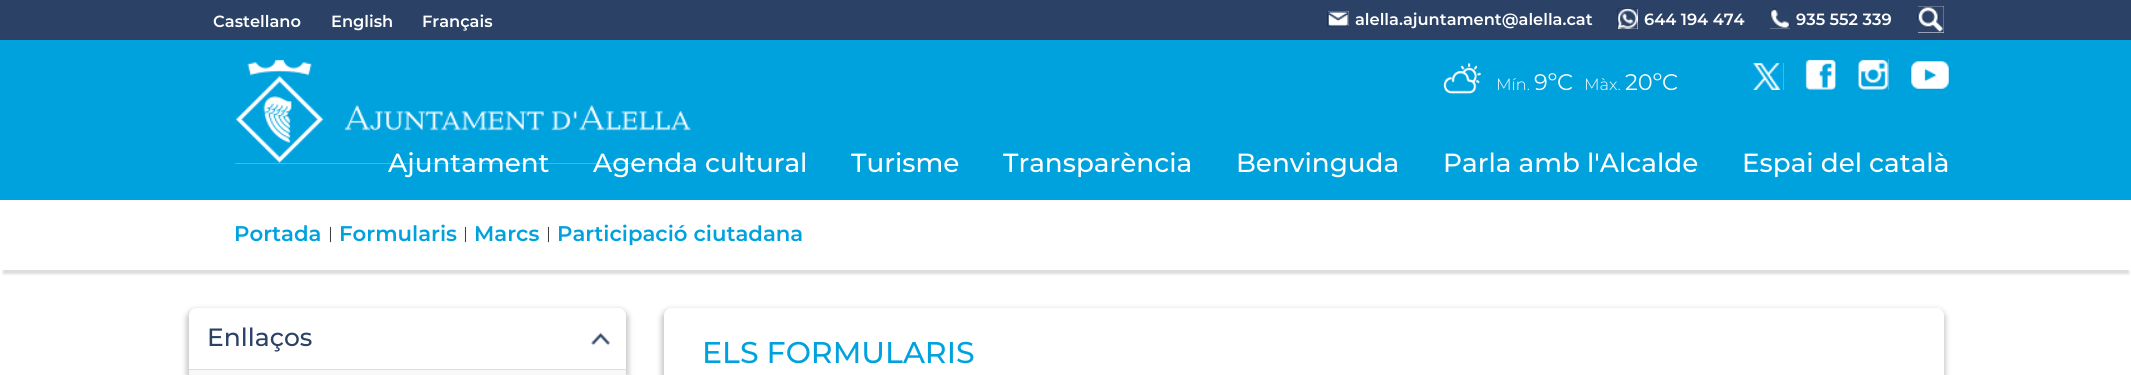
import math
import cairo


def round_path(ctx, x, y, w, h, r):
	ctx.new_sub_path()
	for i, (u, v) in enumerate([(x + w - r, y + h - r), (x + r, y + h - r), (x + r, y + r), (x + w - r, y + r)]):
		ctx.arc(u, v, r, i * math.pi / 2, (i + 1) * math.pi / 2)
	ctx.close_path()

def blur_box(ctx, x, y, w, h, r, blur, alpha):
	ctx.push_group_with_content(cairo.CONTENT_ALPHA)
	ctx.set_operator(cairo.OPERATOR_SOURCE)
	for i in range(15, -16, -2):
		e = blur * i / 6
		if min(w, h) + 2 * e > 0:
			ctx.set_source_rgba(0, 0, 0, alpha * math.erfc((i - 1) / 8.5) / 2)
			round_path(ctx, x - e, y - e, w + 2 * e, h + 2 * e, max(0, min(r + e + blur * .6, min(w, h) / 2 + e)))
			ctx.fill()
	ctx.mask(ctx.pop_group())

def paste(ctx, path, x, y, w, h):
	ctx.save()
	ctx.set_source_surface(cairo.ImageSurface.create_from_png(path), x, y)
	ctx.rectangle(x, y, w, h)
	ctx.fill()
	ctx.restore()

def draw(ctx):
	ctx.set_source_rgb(1, 1, 1)
	ctx.paint()
	ctx.set_source_rgb(0.169, 0.259, 0.4)
	ctx.rectangle(0, 0, 2131, 40)
	ctx.fill()
	ctx.select_font_face('Montserrat SemiBold')
	ctx.set_font_size(16.25)
	ctx.set_source_rgb(1, 1, 1)
	for x, y, s in [
		(213, 27, 'Castellano'),
		(331, 27, 'English'),
		(422, 27, 'Français'),
	]:
		ctx.move_to(x, y)
		ctx.show_text(s)
	ctx.rectangle(1328, 11, 21, 15)
	ctx.fill()
	paste(ctx, 'media/1.png', 1327, 11, 22, 16)
	ctx.move_to(1355, 25)
	ctx.show_text('alella.ajuntament@alella.cat')
	ctx.rectangle(1618, 9, 20, 20)
	ctx.fill()
	paste(ctx, 'media/2.png', 1617, 8, 21, 21)
	ctx.move_to(1644, 25)
	ctx.show_text('644 194 474')
	ctx.rectangle(1770, 9, 20, 20)
	ctx.fill()
	paste(ctx, 'media/3.png', 1770, 8, 20, 21)
	ctx.move_to(1796, 25)
	ctx.show_text('935 552 339')
	ctx.rectangle(1918, 6, 26, 27)
	ctx.fill()
	paste(ctx, 'media/4.png', 1917, 6, 27, 27)
	ctx.set_source_rgb(0, 0.635, 0.871)
	ctx.rectangle(0, 40, 2131, 160)
	ctx.fill()
	ctx.set_source_rgb(1, 1, 1)
	ctx.rectangle(235, 59, 456, 105)
	ctx.fill()
	paste(ctx, 'media/5.png', 235, 59, 456, 105)
	paste(ctx, 'media/6.png', 1443, 62, 38, 32)
	ctx.select_font_face('Montserrat Light')
	ctx.move_to(1496, 90)
	ctx.show_text('Mín.')
	ctx.select_font_face('Montserrat')
	ctx.set_font_size(22.5)
	ctx.move_to(1534, 90)
	ctx.show_text('9ºC')
	ctx.select_font_face('Montserrat Light')
	ctx.set_font_size(16.25)
	ctx.move_to(1584, 90)
	ctx.show_text('Màx.')
	ctx.select_font_face('Montserrat')
	ctx.set_font_size(22.5)
	ctx.move_to(1625, 90)
	ctx.show_text('20ºC')
	ctx.rectangle(1752, 63, 32, 27)
	ctx.fill()
	paste(ctx, 'media/7.png', 1750, 63, 34, 27)
	ctx.rectangle(1805, 59, 31, 31)
	ctx.fill()
	paste(ctx, 'media/8.png', 1805, 59, 31, 31)
	ctx.rectangle(1858, 59, 31, 31)
	ctx.fill()
	paste(ctx, 'media/9.png', 1858, 59, 31, 31)
	ctx.rectangle(1911, 61, 38, 28)
	ctx.fill()
	paste(ctx, 'media/10.png', 1910, 60, 40, 30)
	ctx.select_font_face('Montserrat Medium')
	ctx.set_font_size(26.25)
	for x, y, s in [
		(388, 172, 'Ajuntament'),
		(593, 172, 'Agenda cultural'),
		(851, 172, 'Turisme'),
		(1003, 172, 'Transparència'),
		(1236, 172, 'Benvinguda'),
		(1443, 172, 'Parla amb l\'Alcalde'),
		(1742, 172, 'Espai del català'),
	]:
		ctx.move_to(x, y)
		ctx.show_text(s)
	ctx.save()
	ctx.rectangle(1, 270, 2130, 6)
	ctx.clip()
	ctx.set_source_rgb(0.867, 0.867, 0.867)
	blur_box(ctx, 3, 209, 2126, 65, 0, 1, 1)
	ctx.restore()
	ctx.select_font_face('Montserrat SemiBold')
	ctx.set_font_size(21.25)
	ctx.set_source_rgb(0, 0.635, 0.871)
	ctx.move_to(234, 241)
	ctx.show_text('Portada')
	ctx.select_font_face('Montserrat Light')
	ctx.set_font_size(16.25)
	ctx.set_source_rgb(0, 0, 0)
	ctx.move_to(328, 239)
	ctx.show_text('|')
	ctx.select_font_face('Montserrat SemiBold')
	ctx.set_font_size(21.25)
	ctx.set_source_rgb(0, 0.635, 0.871)
	ctx.move_to(339, 241)
	ctx.show_text('Formularis')
	ctx.select_font_face('Montserrat Light')
	ctx.set_font_size(16.25)
	ctx.set_source_rgb(0, 0, 0)
	ctx.move_to(463, 239)
	ctx.show_text('|')
	ctx.select_font_face('Montserrat SemiBold')
	ctx.set_font_size(21.25)
	ctx.set_source_rgb(0, 0.635, 0.871)
	ctx.move_to(474, 241)
	ctx.show_text('Marcs')
	ctx.select_font_face('Montserrat Light')
	ctx.set_font_size(16.25)
	ctx.set_source_rgb(0, 0, 0)
	ctx.move_to(546, 239)
	ctx.show_text('|')
	ctx.select_font_face('Montserrat SemiBold')
	ctx.set_font_size(21.25)
	ctx.set_source_rgb(0, 0.635, 0.871)
	ctx.move_to(557, 241)
	ctx.show_text('Participació ciutadana')
	ctx.save()
	ctx.set_fill_rule(cairo.FILL_RULE_EVEN_ODD)
	ctx.new_path()
	ctx.move_to(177, 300)
	ctx.line_to(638, 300)
	ctx.line_to(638, 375)
	ctx.line_to(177, 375)
	ctx.close_path()
	ctx.move_to(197, 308)
	ctx.line_to(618, 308)
	ctx.curve_to(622.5, 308, 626, 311.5, 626, 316)
	ctx.line_to(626, 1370)
	ctx.curve_to(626, 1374.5, 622.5, 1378, 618, 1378)
	ctx.line_to(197, 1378)
	ctx.curve_to(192.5, 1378, 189, 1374.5, 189, 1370)
	ctx.line_to(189, 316)
	ctx.curve_to(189, 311.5, 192.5, 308, 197, 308)
	ctx.close_path()
	ctx.clip()
	ctx.set_source_rgb(0.8, 0.8, 0.8)
	blur_box(ctx, 186, 309, 443, 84, 10, 2.5, 1)
	ctx.restore()
	ctx.set_source_rgb(0.867, 0.867, 0.867)
	ctx.rectangle(189, 369, 437, 1)
	ctx.fill()
	ctx.select_font_face('Montserrat Medium')
	ctx.set_font_size(25)
	ctx.set_source_rgb(0.169, 0.259, 0.4)
	ctx.move_to(207, 346)
	ctx.show_text('Enllaços')
	ctx.set_source_rgb(0.969, 0.969, 0.969)
	ctx.rectangle(189, 370, 437, 5)
	ctx.fill()
	paste(ctx, 'media/11.png', 591, 332, 20, 14)
	ctx.save()
	ctx.set_fill_rule(cairo.FILL_RULE_EVEN_ODD)
	ctx.new_path()
	ctx.move_to(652, 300)
	ctx.line_to(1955, 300)
	ctx.line_to(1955, 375)
	ctx.line_to(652, 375)
	ctx.close_path()
	ctx.move_to(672, 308)
	ctx.line_to(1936, 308)
	ctx.curve_to(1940.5, 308, 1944, 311.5, 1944, 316)
	ctx.line_to(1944, 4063)
	ctx.curve_to(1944, 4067.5, 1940.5, 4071, 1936, 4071)
	ctx.line_to(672, 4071)
	ctx.curve_to(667.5, 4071, 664, 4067.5, 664, 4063)
	ctx.line_to(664, 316)
	ctx.curve_to(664, 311.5, 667.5, 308, 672, 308)
	ctx.close_path()
	ctx.clip()
	ctx.set_source_rgb(0.8, 0.8, 0.8)
	blur_box(ctx, 661, 309, 1285, 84, 10, 2.5, 1)
	ctx.restore()
	ctx.set_font_size(30)
	ctx.set_source_rgb(0, 0.635, 0.871)
	ctx.move_to(702, 363)
	ctx.show_text('ELS FORMULARIS')


surface = cairo.ImageSurface(cairo.FORMAT_RGB24, 2131, 375)
ctx = cairo.Context(surface)
options = cairo.FontOptions()
options.set_hint_metrics(cairo.HINT_METRICS_OFF)
options.set_hint_style(cairo.HINT_STYLE_NONE)
ctx.set_font_options(options)
ctx.set_miter_limit(4)
draw(ctx)
surface.write_to_png('image.png')
